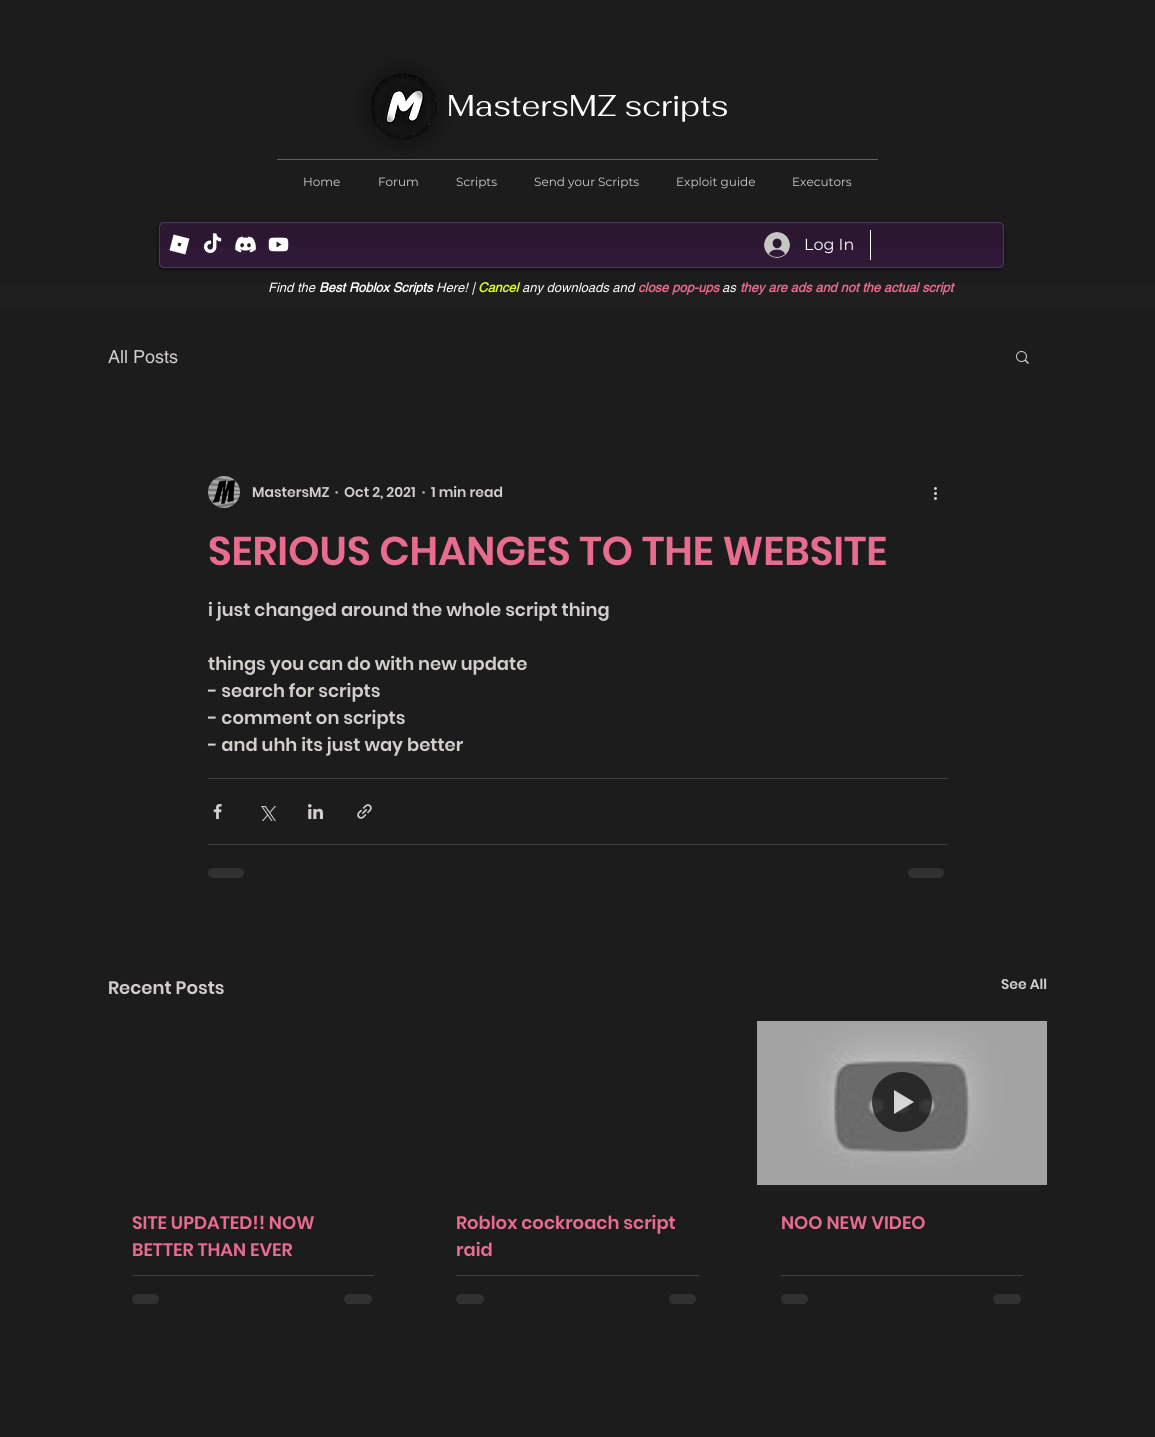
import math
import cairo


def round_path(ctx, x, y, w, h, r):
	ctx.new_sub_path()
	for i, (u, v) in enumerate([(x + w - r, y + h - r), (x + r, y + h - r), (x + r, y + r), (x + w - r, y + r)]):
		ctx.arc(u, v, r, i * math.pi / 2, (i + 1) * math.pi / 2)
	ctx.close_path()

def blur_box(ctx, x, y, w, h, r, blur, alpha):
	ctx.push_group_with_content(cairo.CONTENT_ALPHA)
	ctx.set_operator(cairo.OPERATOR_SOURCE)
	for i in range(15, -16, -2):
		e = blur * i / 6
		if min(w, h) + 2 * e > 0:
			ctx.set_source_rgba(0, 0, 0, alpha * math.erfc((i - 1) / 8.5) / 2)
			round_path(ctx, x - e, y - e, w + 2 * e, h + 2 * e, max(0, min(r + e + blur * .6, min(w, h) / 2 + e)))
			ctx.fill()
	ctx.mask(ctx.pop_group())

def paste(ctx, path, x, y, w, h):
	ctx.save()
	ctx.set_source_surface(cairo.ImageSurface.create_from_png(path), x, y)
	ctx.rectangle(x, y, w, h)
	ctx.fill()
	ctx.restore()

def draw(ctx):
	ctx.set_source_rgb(0.11, 0.11, 0.11)
	ctx.paint()
	ctx.set_source_rgb(0, 0, 0)
	blur_box(ctx, 367, 70, 73, 73, 36.5, 10.5, 0.36)
	paste(ctx, 'media/1.png', 370, 73, 67, 67)
	ctx.select_font_face('Fahkwang')
	ctx.set_font_size(30)
	ctx.set_source_rgb(1, 1, 1)
	ctx.move_to(447, 116)
	ctx.show_text('MastersMZ scripts')
	ctx.set_source_rgb(0.388, 0.388, 0.388)
	ctx.rectangle(277, 159, 601, 1)
	ctx.fill()
	ctx.select_font_face('Montserrat')
	ctx.set_font_size(12)
	ctx.set_source_rgb(0.824, 0.812, 0.792)
	for x, y, s in [
		(303, 186, 'Home'),
		(378, 186, 'Forum'),
		(456, 186, 'Scripts'),
		(534, 186, 'Send your Scripts'),
		(676, 186, 'Exploit guide'),
		(792, 186, 'Executors'),
	]:
		ctx.move_to(x, y)
		ctx.show_text(s)
	ctx.save()
	ctx.set_fill_rule(cairo.FILL_RULE_EVEN_ODD)
	ctx.new_path()
	ctx.move_to(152, 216)
	ctx.line_to(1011, 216)
	ctx.line_to(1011, 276)
	ctx.line_to(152, 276)
	ctx.close_path()
	ctx.move_to(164, 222)
	ctx.line_to(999, 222)
	ctx.curve_to(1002, 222, 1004, 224, 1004, 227)
	ctx.line_to(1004, 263)
	ctx.curve_to(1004, 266, 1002, 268, 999, 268)
	ctx.line_to(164, 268)
	ctx.curve_to(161, 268, 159, 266, 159, 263)
	ctx.line_to(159, 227)
	ctx.curve_to(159, 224, 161, 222, 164, 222)
	ctx.close_path()
	ctx.clip()
	ctx.set_source_rgb(0, 0, 0)
	blur_box(ctx, 159, 223, 845, 46, 5, 2, 0.6)
	ctx.restore()
	ctx.set_source_rgba(0.247, 0.09, 0.294, 0.57)
	round_path(ctx, 159, 222, 845, 46, 5)
	ctx.fill()
	paste(ctx, 'media/2.png', 159, 225, 845, 22)
	round_path(ctx, 159.5, 222.5, 844, 45, 4.5)
	ctx.set_source_rgba(0.545, 0.549, 0.839, 0.29)
	ctx.set_line_width(1)
	ctx.stroke()
	paste(ctx, 'media/3.png', 169, 234, 21, 21)
	paste(ctx, 'media/4.png', 203, 233, 19, 21)
	paste(ctx, 'media/5.png', 235, 236, 21, 17)
	paste(ctx, 'media/6.png', 268, 237, 21, 15)
	paste(ctx, 'media/7.png', 764, 232, 26, 26)
	ctx.set_font_size(16)
	ctx.set_source_rgb(1, 1, 1)
	ctx.move_to(804, 250)
	ctx.show_text('Log In')
	ctx.rectangle(870, 230, 1, 30)
	ctx.fill()
	gradient = cairo.LinearGradient(578, 309, 578, 158)
	gradient.add_color_stop_rgba(0, 0.122, 0.122, 0.122, 1)
	gradient.add_color_stop_rgba(1, 0.11, 0.11, 0.11, 1)
	ctx.set_source(gradient)
	ctx.rectangle(0, 284, 1155, 25)
	ctx.fill()
	ctx.select_font_face('helvetica', cairo.FONT_SLANT_ITALIC)
	ctx.set_font_size(13)
	ctx.set_source_rgb(1, 1, 1)
	ctx.move_to(268, 292)
	ctx.show_text('Find the')
	ctx.select_font_face('helvetica', cairo.FONT_SLANT_ITALIC, cairo.FONT_WEIGHT_BOLD)
	ctx.move_to(319, 292)
	ctx.show_text('Best Roblox Scripts')
	ctx.select_font_face('helvetica', cairo.FONT_SLANT_ITALIC)
	ctx.move_to(436, 292)
	ctx.show_text('Here! |')
	ctx.select_font_face('helvetica', cairo.FONT_SLANT_ITALIC, cairo.FONT_WEIGHT_BOLD)
	ctx.set_source_rgb(0.878, 0.992, 0.173)
	ctx.move_to(478, 292)
	ctx.show_text('Cancel')
	ctx.select_font_face('helvetica', cairo.FONT_SLANT_ITALIC)
	ctx.set_source_rgb(1, 1, 1)
	ctx.move_to(522, 292)
	ctx.show_text('any downloads and')
	ctx.select_font_face('helvetica', cairo.FONT_SLANT_ITALIC, cairo.FONT_WEIGHT_BOLD)
	ctx.set_source_rgb(0.91, 0.424, 0.557)
	ctx.move_to(638, 292)
	ctx.show_text('close pop-ups')
	ctx.select_font_face('helvetica', cairo.FONT_SLANT_ITALIC)
	ctx.set_source_rgb(1, 1, 1)
	ctx.move_to(722, 292)
	ctx.show_text('as')
	ctx.select_font_face('helvetica', cairo.FONT_SLANT_ITALIC, cairo.FONT_WEIGHT_BOLD)
	ctx.set_source_rgb(0.91, 0.424, 0.557)
	ctx.move_to(740, 292)
	ctx.show_text('they are ads and not the actual script')
	ctx.select_font_face('helvetica')
	ctx.set_font_size(18)
	ctx.set_source_rgb(0.824, 0.812, 0.792)
	ctx.move_to(108, 363)
	ctx.show_text('All Posts')
	paste(ctx, 'media/8.png', 1016, 351, 13, 13)
	paste(ctx, 'media/9.png', 208, 476, 32, 32)
	ctx.select_font_face('Poppins SemiBold')
	ctx.set_font_size(14)
	for x, y, s in [
		(252, 497, 'MastersMZ'),
		(335, 497, '·'),
		(344, 497, 'Oct 2, 2021'),
		(422, 497, '·'),
		(431, 497, '1 min read'),
	]:
		ctx.move_to(x, y)
		ctx.show_text(s)
	paste(ctx, 'media/10.png', 934, 487, 3, 13)
	ctx.set_font_size(40)
	ctx.set_source_rgb(0.91, 0.424, 0.557)
	ctx.move_to(208, 565)
	ctx.show_text('SERIOUS CHANGES TO THE WEBSITE')
	ctx.set_font_size(18)
	ctx.set_source_rgb(0.824, 0.812, 0.792)
	for x, y, s in [
		(208, 616, 'i just changed around the whole script thing'),
		(208, 670, 'things you can do with new update'),
		(208, 697, '- search for scripts'),
		(208, 724, '- comment on scripts'),
		(208, 751, '- and uhh its just way better'),
	]:
		ctx.move_to(x, y)
		ctx.show_text(s)
	ctx.set_source_rgb(0.251, 0.251, 0.247)
	ctx.rectangle(208, 778, 740, 1)
	ctx.fill()
	paste(ctx, 'media/11.png', 213, 804, 9, 15)
	paste(ctx, 'media/12.png', 261, 806, 15, 15)
	paste(ctx, 'media/13.png', 308, 804, 15, 15)
	paste(ctx, 'media/14.png', 357, 804, 15, 15)
	ctx.rectangle(208, 844, 740, 1)
	ctx.fill()
	ctx.set_source_rgb(0.196, 0.192, 0.192)
	round_path(ctx, 208, 868, 36, 10, 5)
	ctx.fill()
	round_path(ctx, 908, 868, 36, 10, 5)
	ctx.fill()
	ctx.set_source_rgb(0.824, 0.812, 0.792)
	ctx.move_to(108, 994)
	ctx.show_text('Recent Posts')
	ctx.set_font_size(14)
	ctx.move_to(1001, 989)
	ctx.show_text('See All')
	ctx.set_font_size(18)
	ctx.set_source_rgb(0.91, 0.424, 0.557)
	ctx.move_to(132, 1229)
	ctx.show_text('SITE UPDATED!! NOW')
	ctx.move_to(132, 1256)
	ctx.show_text('BETTER THAN EVER')
	ctx.set_source_rgb(0.251, 0.251, 0.247)
	ctx.rectangle(132, 1275, 242, 1)
	ctx.fill()
	ctx.set_source_rgb(0.196, 0.192, 0.192)
	round_path(ctx, 132, 1294, 27, 10, 5)
	ctx.fill()
	round_path(ctx, 344, 1294, 28, 10, 5)
	ctx.fill()
	ctx.set_source_rgb(0.91, 0.424, 0.557)
	ctx.move_to(456, 1229)
	ctx.show_text('Roblox cockroach script')
	ctx.move_to(456, 1256)
	ctx.show_text('raid')
	ctx.set_source_rgb(0.251, 0.251, 0.247)
	ctx.rectangle(456, 1275, 243, 1)
	ctx.fill()
	ctx.set_source_rgb(0.196, 0.192, 0.192)
	round_path(ctx, 456, 1294, 28, 10, 5)
	ctx.fill()
	round_path(ctx, 669, 1294, 27, 10, 5)
	ctx.fill()
	paste(ctx, 'media/15.png', 757, 1021, 290, 164)
	ctx.set_source_rgba(0.102, 0.102, 0.102, 0.8)
	ctx.arc(902, 1102, 30, 0, 2 * math.pi)
	ctx.fill()
	ctx.set_source_rgba(1, 1, 1, 0.8)
	ctx.new_path()
	ctx.move_to(894, 1090)
	ctx.line_to(894, 1114)
	ctx.line_to(914, 1102)
	ctx.close_path()
	ctx.fill()
	ctx.set_source_rgb(0.91, 0.424, 0.557)
	ctx.move_to(781, 1229)
	ctx.show_text('NOO NEW VIDEO')
	ctx.set_source_rgb(0.251, 0.251, 0.247)
	ctx.rectangle(781, 1275, 242, 1)
	ctx.fill()
	ctx.set_source_rgb(0.196, 0.192, 0.192)
	round_path(ctx, 781, 1294, 27, 10, 5)
	ctx.fill()
	round_path(ctx, 993, 1294, 28, 10, 5)
	ctx.fill()


surface = cairo.ImageSurface(cairo.FORMAT_RGB24, 1155, 1437)
ctx = cairo.Context(surface)
options = cairo.FontOptions()
options.set_hint_metrics(cairo.HINT_METRICS_OFF)
options.set_hint_style(cairo.HINT_STYLE_NONE)
ctx.set_font_options(options)
ctx.set_miter_limit(4)
draw(ctx)
surface.write_to_png('image.png')
